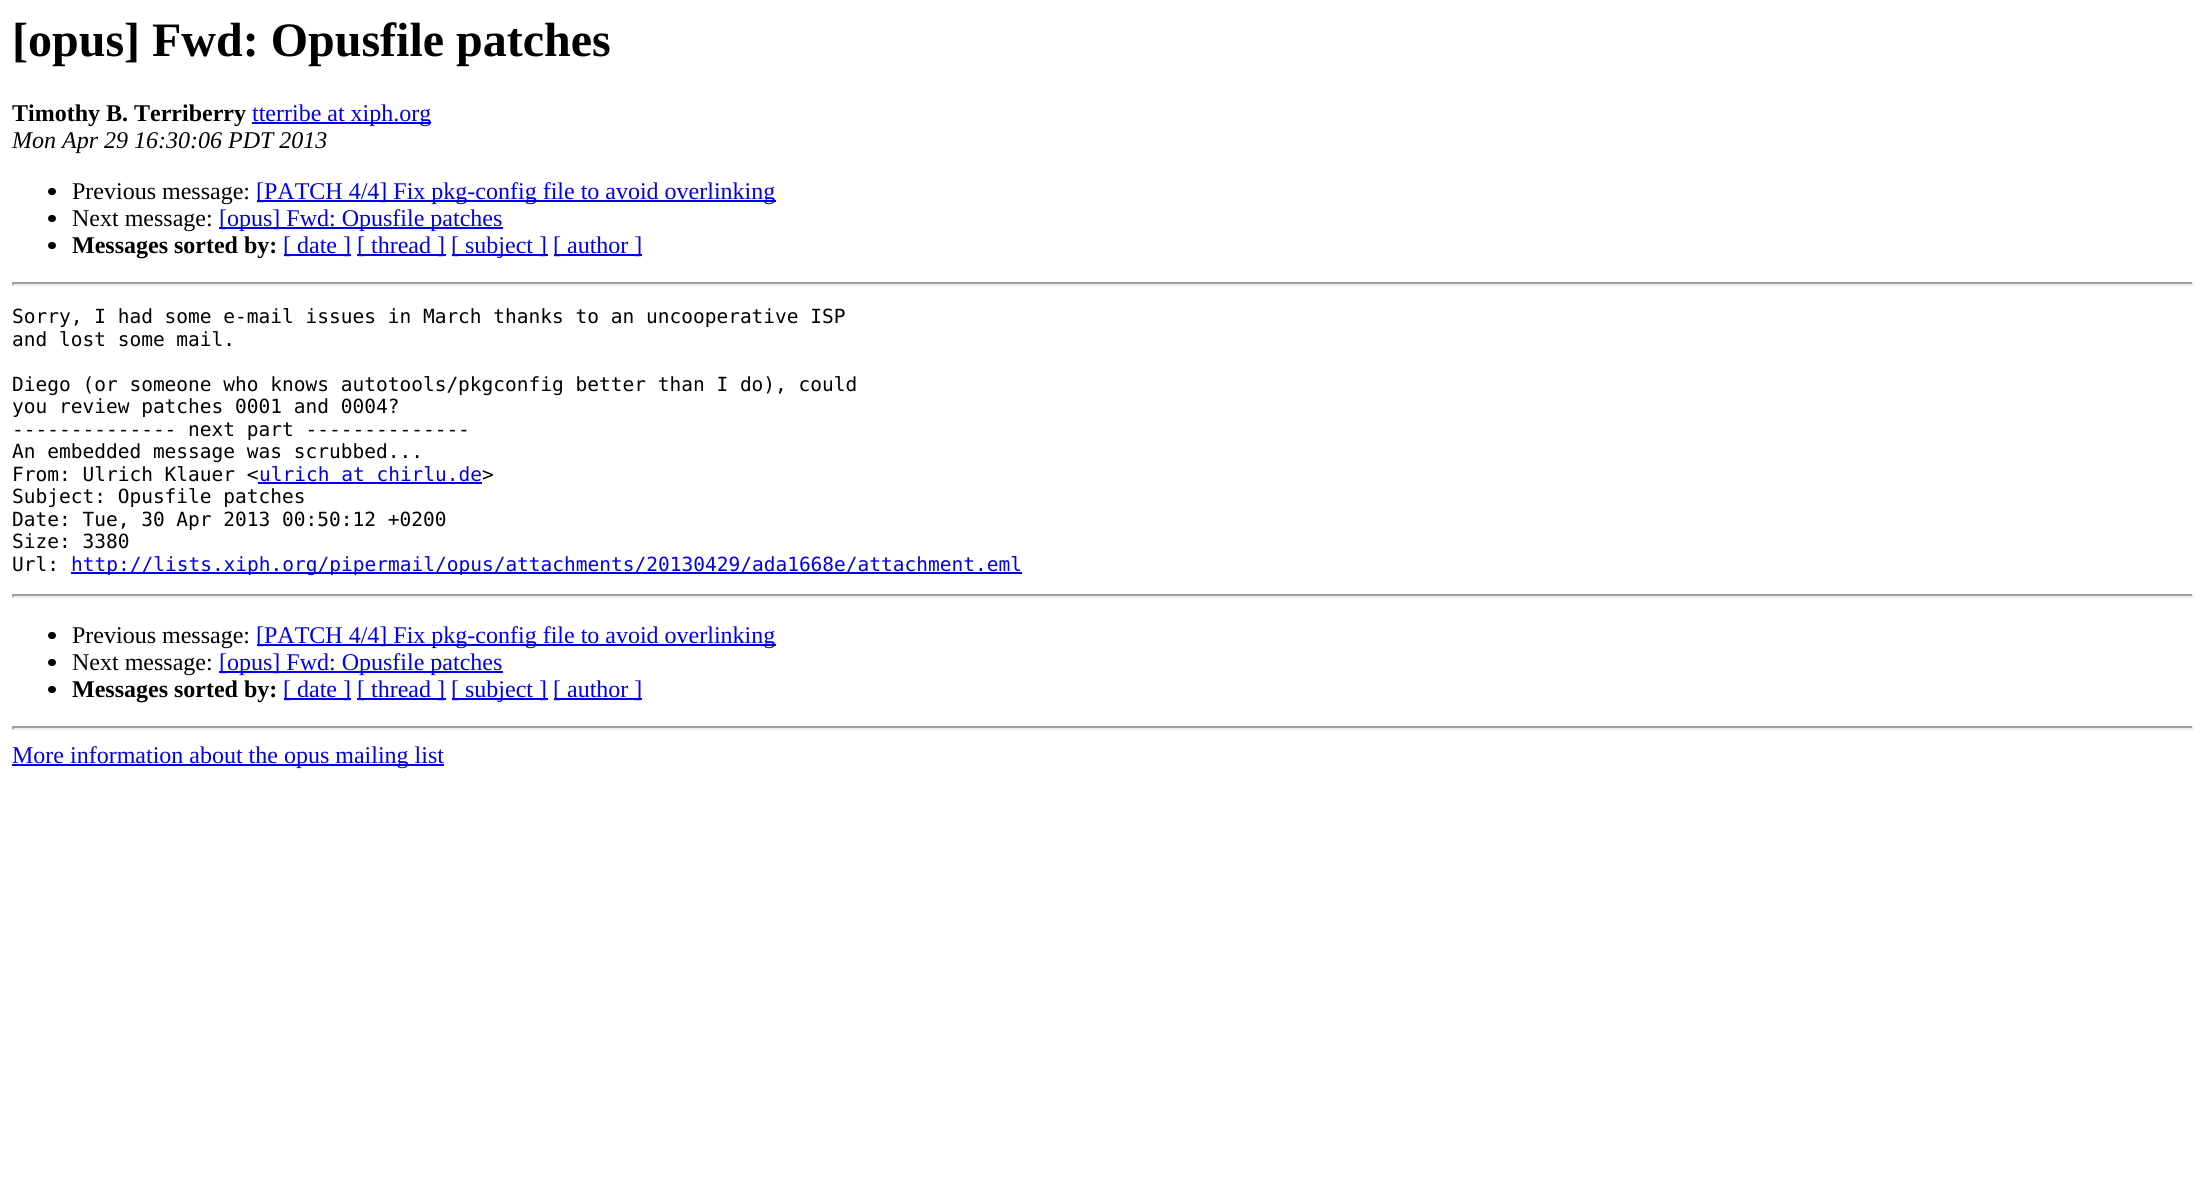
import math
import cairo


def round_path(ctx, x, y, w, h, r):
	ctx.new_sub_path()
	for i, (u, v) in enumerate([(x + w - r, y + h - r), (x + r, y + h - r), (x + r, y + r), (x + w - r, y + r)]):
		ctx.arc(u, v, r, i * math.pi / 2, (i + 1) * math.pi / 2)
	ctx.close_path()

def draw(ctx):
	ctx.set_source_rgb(1, 1, 1)
	ctx.paint()
	ctx.select_font_face('Liberation Serif', cairo.FONT_SLANT_NORMAL, cairo.FONT_WEIGHT_BOLD)
	ctx.set_font_size(48)
	ctx.set_source_rgb(0, 0, 0)
	ctx.move_to(12, 56)
	ctx.show_text('[opus] Fwd: Opusfile patches')
	ctx.set_font_size(24)
	ctx.move_to(12, 121)
	ctx.show_text('Timothy B. Terriberry')
	ctx.set_source_rgb(0, 0, 0.933)
	ctx.rectangle(252, 122, 179, 2)
	ctx.fill()
	ctx.select_font_face('Liberation Serif')
	ctx.move_to(252, 121)
	ctx.show_text('tterribe at xiph.org')
	ctx.select_font_face('Liberation Serif', cairo.FONT_SLANT_ITALIC)
	ctx.set_source_rgb(0, 0, 0)
	ctx.move_to(12, 148)
	ctx.show_text('Mon Apr 29 16:30:06 PDT 2013')
	round_path(ctx, 48, 188, 8, 7, 3.5)
	ctx.fill()
	ctx.select_font_face('Liberation Serif')
	ctx.move_to(72, 199)
	ctx.show_text('Previous message:')
	ctx.set_source_rgb(0, 0, 0.933)
	ctx.rectangle(257, 200, 519, 2)
	ctx.fill()
	ctx.move_to(256, 199)
	ctx.show_text('[PATCH 4/4] Fix pkg-config file to avoid overlinking')
	ctx.set_source_rgb(0, 0, 0)
	round_path(ctx, 48, 215, 8, 7, 3.5)
	ctx.fill()
	ctx.move_to(72, 226)
	ctx.show_text('Next message:')
	ctx.set_source_rgb(0, 0, 0.933)
	ctx.rectangle(219, 227, 284, 2)
	ctx.fill()
	ctx.move_to(219, 226)
	ctx.show_text('[opus] Fwd: Opusfile patches')
	ctx.set_source_rgb(0, 0, 0)
	round_path(ctx, 48, 242, 8, 7, 3.5)
	ctx.fill()
	ctx.select_font_face('Liberation Serif', cairo.FONT_SLANT_NORMAL, cairo.FONT_WEIGHT_BOLD)
	ctx.move_to(72, 253)
	ctx.show_text('Messages sorted by:')
	ctx.set_source_rgb(0, 0, 0.933)
	ctx.rectangle(284, 254, 67, 2)
	ctx.fill()
	ctx.select_font_face('Liberation Serif')
	ctx.move_to(283, 253)
	ctx.show_text('[ date ]')
	ctx.rectangle(357, 254, 89, 2)
	ctx.fill()
	ctx.move_to(357, 253)
	ctx.show_text('[ thread ]')
	ctx.rectangle(452, 254, 96, 2)
	ctx.fill()
	ctx.move_to(451, 253)
	ctx.show_text('[ subject ]')
	ctx.rectangle(554, 254, 88, 2)
	ctx.fill()
	ctx.move_to(553, 253)
	ctx.show_text('[ author ]')
	ctx.set_source_rgb(0.624, 0.624, 0.624)
	ctx.rectangle(12, 282, 2181, 2)
	ctx.fill()
	ctx.set_source_rgb(0.933, 0.933, 0.933)
	ctx.rectangle(2192, 282, 2, 3)
	ctx.rectangle(12, 284, 2181, 2)
	ctx.fill()
	ctx.set_source_rgb(0.624, 0.624, 0.624)
	ctx.rectangle(12, 282, 2, 3)
	ctx.fill()
	ctx.select_font_face('DejaVu Sans Mono')
	ctx.set_font_size(19.5)
	ctx.set_source_rgb(0, 0, 0)
	for x, y, s in [
		(12, 323, 'Sorry, I had some e-mail issues in March thanks to an uncooperative ISP'),
		(12, 346, 'and lost some mail.'),
		(12, 391, 'Diego (or someone who knows autotools/pkgconfig better than I do), could'),
		(12, 413, 'you review patches 0001 and 0004?'),
		(12, 436, '-------------- next part --------------'),
		(12, 458, 'An embedded message was scrubbed...'),
		(12, 481, 'From: Ulrich Klauer <'),
	]:
		ctx.move_to(x, y)
		ctx.show_text(s)
	ctx.set_source_rgb(0, 0, 0.933)
	ctx.move_to(259, 481)
	ctx.show_text('ulrich at chirlu.de')
	ctx.rectangle(258, 482, 224, 2)
	ctx.fill()
	ctx.set_source_rgb(0, 0, 0)
	for x, y, s in [
		(482, 481, '>'),
		(12, 503, 'Subject: Opusfile patches'),
		(12, 526, 'Date: Tue, 30 Apr 2013 00:50:12 +0200'),
		(12, 548, 'Size: 3380'),
		(12, 571, 'Url:'),
	]:
		ctx.move_to(x, y)
		ctx.show_text(s)
	ctx.set_source_rgb(0, 0, 0.933)
	ctx.rectangle(71, 572, 951, 2)
	ctx.fill()
	ctx.move_to(71, 571)
	ctx.show_text('http://lists.xiph.org/pipermail/opus/attachments/20130429/ada1668e/attachment.eml')
	ctx.set_source_rgb(0.624, 0.624, 0.624)
	ctx.rectangle(12, 594, 2181, 2)
	ctx.fill()
	ctx.set_source_rgb(0.933, 0.933, 0.933)
	ctx.rectangle(2192, 594, 2, 3)
	ctx.rectangle(12, 596, 2181, 2)
	ctx.fill()
	ctx.set_source_rgb(0.624, 0.624, 0.624)
	ctx.rectangle(12, 594, 2, 3)
	ctx.fill()
	ctx.set_source_rgb(0, 0, 0)
	round_path(ctx, 48, 632, 8, 7, 3.5)
	ctx.fill()
	ctx.select_font_face('Liberation Serif')
	ctx.set_font_size(24)
	ctx.move_to(72, 643)
	ctx.show_text('Previous message:')
	ctx.set_source_rgb(0, 0, 0.933)
	ctx.rectangle(257, 644, 519, 2)
	ctx.fill()
	ctx.move_to(256, 643)
	ctx.show_text('[PATCH 4/4] Fix pkg-config file to avoid overlinking')
	ctx.set_source_rgb(0, 0, 0)
	round_path(ctx, 48, 659, 8, 7, 3.5)
	ctx.fill()
	ctx.move_to(72, 670)
	ctx.show_text('Next message:')
	ctx.set_source_rgb(0, 0, 0.933)
	ctx.rectangle(219, 671, 284, 2)
	ctx.fill()
	ctx.move_to(219, 670)
	ctx.show_text('[opus] Fwd: Opusfile patches')
	ctx.set_source_rgb(0, 0, 0)
	round_path(ctx, 48, 686, 8, 7, 3.5)
	ctx.fill()
	ctx.select_font_face('Liberation Serif', cairo.FONT_SLANT_NORMAL, cairo.FONT_WEIGHT_BOLD)
	ctx.move_to(72, 697)
	ctx.show_text('Messages sorted by:')
	ctx.set_source_rgb(0, 0, 0.933)
	ctx.rectangle(284, 698, 67, 2)
	ctx.fill()
	ctx.select_font_face('Liberation Serif')
	ctx.move_to(283, 697)
	ctx.show_text('[ date ]')
	ctx.rectangle(357, 698, 89, 2)
	ctx.fill()
	ctx.move_to(357, 697)
	ctx.show_text('[ thread ]')
	ctx.rectangle(452, 698, 96, 2)
	ctx.fill()
	ctx.move_to(451, 697)
	ctx.show_text('[ subject ]')
	ctx.rectangle(554, 698, 88, 2)
	ctx.fill()
	ctx.move_to(553, 697)
	ctx.show_text('[ author ]')
	ctx.set_source_rgb(0.624, 0.624, 0.624)
	ctx.rectangle(12, 726, 2181, 2)
	ctx.fill()
	ctx.set_source_rgb(0.933, 0.933, 0.933)
	ctx.rectangle(2192, 726, 2, 3)
	ctx.rectangle(12, 728, 2181, 2)
	ctx.fill()
	ctx.set_source_rgb(0.624, 0.624, 0.624)
	ctx.rectangle(12, 726, 2, 3)
	ctx.fill()
	ctx.set_source_rgb(0, 0, 0.933)
	ctx.rectangle(12, 764, 432, 2)
	ctx.fill()
	ctx.move_to(12, 763)
	ctx.show_text('More information about the opus mailing list')


surface = cairo.ImageSurface(cairo.FORMAT_RGB24, 2204, 1190)
ctx = cairo.Context(surface)
options = cairo.FontOptions()
options.set_hint_metrics(cairo.HINT_METRICS_OFF)
options.set_hint_style(cairo.HINT_STYLE_NONE)
ctx.set_font_options(options)
ctx.set_miter_limit(4)
draw(ctx)
surface.write_to_png('image.png')
